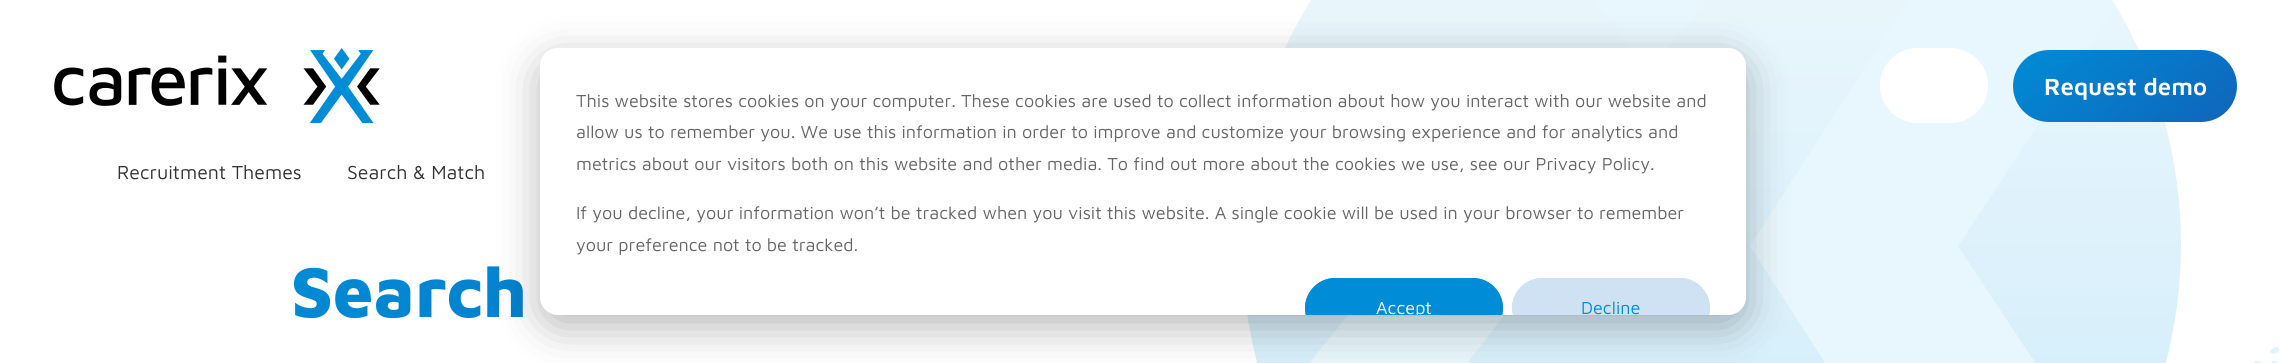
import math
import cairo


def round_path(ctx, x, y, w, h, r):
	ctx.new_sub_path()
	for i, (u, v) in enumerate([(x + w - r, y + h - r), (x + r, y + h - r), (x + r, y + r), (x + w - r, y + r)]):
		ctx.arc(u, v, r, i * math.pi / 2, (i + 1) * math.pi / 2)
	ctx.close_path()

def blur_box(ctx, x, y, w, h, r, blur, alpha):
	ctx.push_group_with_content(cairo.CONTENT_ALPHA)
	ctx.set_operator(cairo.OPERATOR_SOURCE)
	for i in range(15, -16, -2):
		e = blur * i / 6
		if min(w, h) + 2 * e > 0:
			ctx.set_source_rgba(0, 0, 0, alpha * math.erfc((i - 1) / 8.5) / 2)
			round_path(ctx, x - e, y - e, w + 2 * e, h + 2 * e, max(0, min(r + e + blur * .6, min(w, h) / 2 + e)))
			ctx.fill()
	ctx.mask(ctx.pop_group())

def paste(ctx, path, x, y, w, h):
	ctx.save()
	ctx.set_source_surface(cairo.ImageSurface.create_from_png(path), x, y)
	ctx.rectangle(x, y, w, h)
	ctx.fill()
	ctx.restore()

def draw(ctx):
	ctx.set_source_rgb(1, 1, 1)
	ctx.paint()
	paste(ctx, 'media/1.png', 2253, 346, 26, 17)
	paste(ctx, 'media/2.png', 54, 48, 326, 75)
	gradient = cairo.LinearGradient(1758, 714, 1758, -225)
	gradient.add_color_stop_rgba(0, 0.78, 0.914, 0.98, 1)
	gradient.add_color_stop_rgba(1, 0.953, 0.98, 0.992, 1)
	ctx.set_source(gradient)
	ctx.arc(1711.5, 244.5, 469.5, 0, 2 * math.pi)
	ctx.fill()
	ctx.set_source_rgb(0.91, 0.965, 0.992)
	ctx.new_path()
	ctx.move_to(1958, 246)
	ctx.line_to(2115, 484)
	ctx.curve_to(2084, 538, 2041, 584, 1991, 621)
	ctx.line_to(1750, 246)
	ctx.line_to(1993, -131)
	ctx.curve_to(2043, -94, 2085, -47, 2116, 7)
	ctx.close_path()
	ctx.fill()
	ctx.set_source_rgb(1, 1, 1)
	round_path(ctx, 1880, 48, 108, 75, 37.5)
	ctx.fill()
	gradient = cairo.LinearGradient(2065, 9, 2185, 162)
	gradient.add_color_stop_rgba(0, 0, 0.549, 0.839, 1)
	gradient.add_color_stop_rgba(1, 0.059, 0.396, 0.729, 1)
	ctx.set_source(gradient)
	round_path(ctx, 2013, 50, 224, 72, 36)
	ctx.fill()
	ctx.select_font_face('Maven Pro SemiBold')
	ctx.set_font_size(24)
	ctx.set_source_rgb(1, 1, 1)
	ctx.move_to(2044, 95)
	ctx.show_text('Request demo')
	ctx.select_font_face('Maven Pro')
	ctx.set_font_size(19.5)
	ctx.set_source_rgb(0.2, 0.2, 0.2)
	ctx.move_to(117, 179)
	ctx.show_text('Recruitment Themes')
	ctx.move_to(347, 179)
	ctx.show_text('Search & Match')
	ctx.select_font_face('Maven Pro ExtraBold')
	ctx.set_font_size(72)
	gradient = cairo.LinearGradient(573, 28, 984, 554)
	gradient.add_color_stop_rgba(0, 0, 0.549, 0.839, 1)
	gradient.add_color_stop_rgba(1, 0.059, 0.396, 0.729, 1)
	ctx.set_source(gradient)
	ctx.move_to(291, 317)
	ctx.show_text('Search')
	ctx.set_source_rgb(0.91, 0.965, 0.992)
	ctx.new_path()
	ctx.move_to(1766, -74)
	ctx.line_to(1649, 71)
	ctx.line_to(1472, -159)
	ctx.curve_to(1484, -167, 1497, -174, 1511, -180)
	ctx.line_to(1681, -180)
	ctx.close_path()
	ctx.fill()
	ctx.new_path()
	ctx.move_to(1402, 49)
	ctx.line_to(1558, 246)
	ctx.line_to(1402, 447)
	ctx.line_to(1288, 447)
	ctx.curve_to(1282, 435, 1277, 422, 1272, 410)
	ctx.line_to(1403, 246)
	ctx.line_to(1271, 83)
	ctx.curve_to(1275, 71, 1279, 60, 1285, 49)
	ctx.close_path()
	ctx.fill()
	ctx.set_source_rgb(0, 0, 0)
	blur_box(ctx, 540, 60, 1206, 267, 18, 21, 0.28)
	ctx.set_source_rgb(1, 1, 1)
	round_path(ctx, 540, 48, 1206, 267, 18)
	ctx.fill()
	ctx.select_font_face('Maven Pro')
	ctx.set_font_size(18)
	ctx.set_source_rgb(0.4, 0.4, 0.4)
	for x, y, s in [
		(576, 107, 'This website stores cookies on your computer. These cookies are used to collect information about how you interact with our website and'),
		(576, 138, 'allow us to remember you. We use this information in order to improve and customize your browsing experience and for analytics and'),
		(576, 170, 'metrics about our visitors both on this website and other media. To find out more about the cookies we use, see our Privacy Policy.'),
		(576, 219, 'If you decline, your information won’t be tracked when you visit this website. A single cookie will be used in your browser to remember'),
		(576, 251, 'your preference not to be tracked.'),
	]:
		ctx.move_to(x, y)
		ctx.show_text(s)
	ctx.save()
	round_path(ctx, 540, 48, 1206, 267, 18)
	ctx.clip()
	ctx.set_source_rgb(0, 0.549, 0.839)
	round_path(ctx, 1305, 278, 198, 60, 30)
	ctx.fill()
	ctx.restore()
	ctx.set_source_rgb(0, 0.549, 0.839)
	ctx.new_path()
	ctx.move_to(1335, 278)
	ctx.curve_to(1316, 278, 1301, 297, 1306, 315)
	ctx.line_to(1308, 315)
	ctx.line_to(1307, 308)
	ctx.curve_to(1307, 293, 1320, 280, 1335, 280)
	ctx.line_to(1473, 280)
	ctx.curve_to(1488, 280, 1501, 293, 1501, 308)
	ctx.line_to(1500, 315)
	ctx.line_to(1502, 315)
	ctx.curve_to(1507, 297, 1492, 278, 1473, 278)
	ctx.close_path()
	ctx.fill()
	ctx.save()
	round_path(ctx, 540, 48, 1206, 267, 18)
	ctx.clip()
	ctx.set_source_rgb(1, 1, 1)
	ctx.move_to(1376, 314)
	ctx.show_text('Accept')
	ctx.set_source_rgb(0.812, 0.886, 0.953)
	round_path(ctx, 1512, 278, 198, 60, 30)
	ctx.fill()
	ctx.restore()
	ctx.set_source_rgb(0.812, 0.886, 0.953)
	ctx.new_path()
	ctx.move_to(1542, 278)
	ctx.curve_to(1523, 278, 1508, 297, 1513, 315)
	ctx.line_to(1515, 315)
	ctx.line_to(1514, 308)
	ctx.curve_to(1514, 293, 1527, 280, 1542, 280)
	ctx.line_to(1680, 280)
	ctx.curve_to(1695, 280, 1708, 293, 1708, 308)
	ctx.line_to(1707, 315)
	ctx.line_to(1709, 315)
	ctx.curve_to(1714, 297, 1699, 278, 1680, 278)
	ctx.close_path()
	ctx.fill()
	ctx.set_source_rgb(0, 0.549, 0.839)
	ctx.move_to(1581, 314)
	ctx.show_text('Decline')


surface = cairo.ImageSurface(cairo.FORMAT_RGB24, 2285, 363)
ctx = cairo.Context(surface)
options = cairo.FontOptions()
options.set_hint_metrics(cairo.HINT_METRICS_OFF)
options.set_hint_style(cairo.HINT_STYLE_NONE)
ctx.set_font_options(options)
ctx.set_miter_limit(4)
draw(ctx)
surface.write_to_png('image.png')
